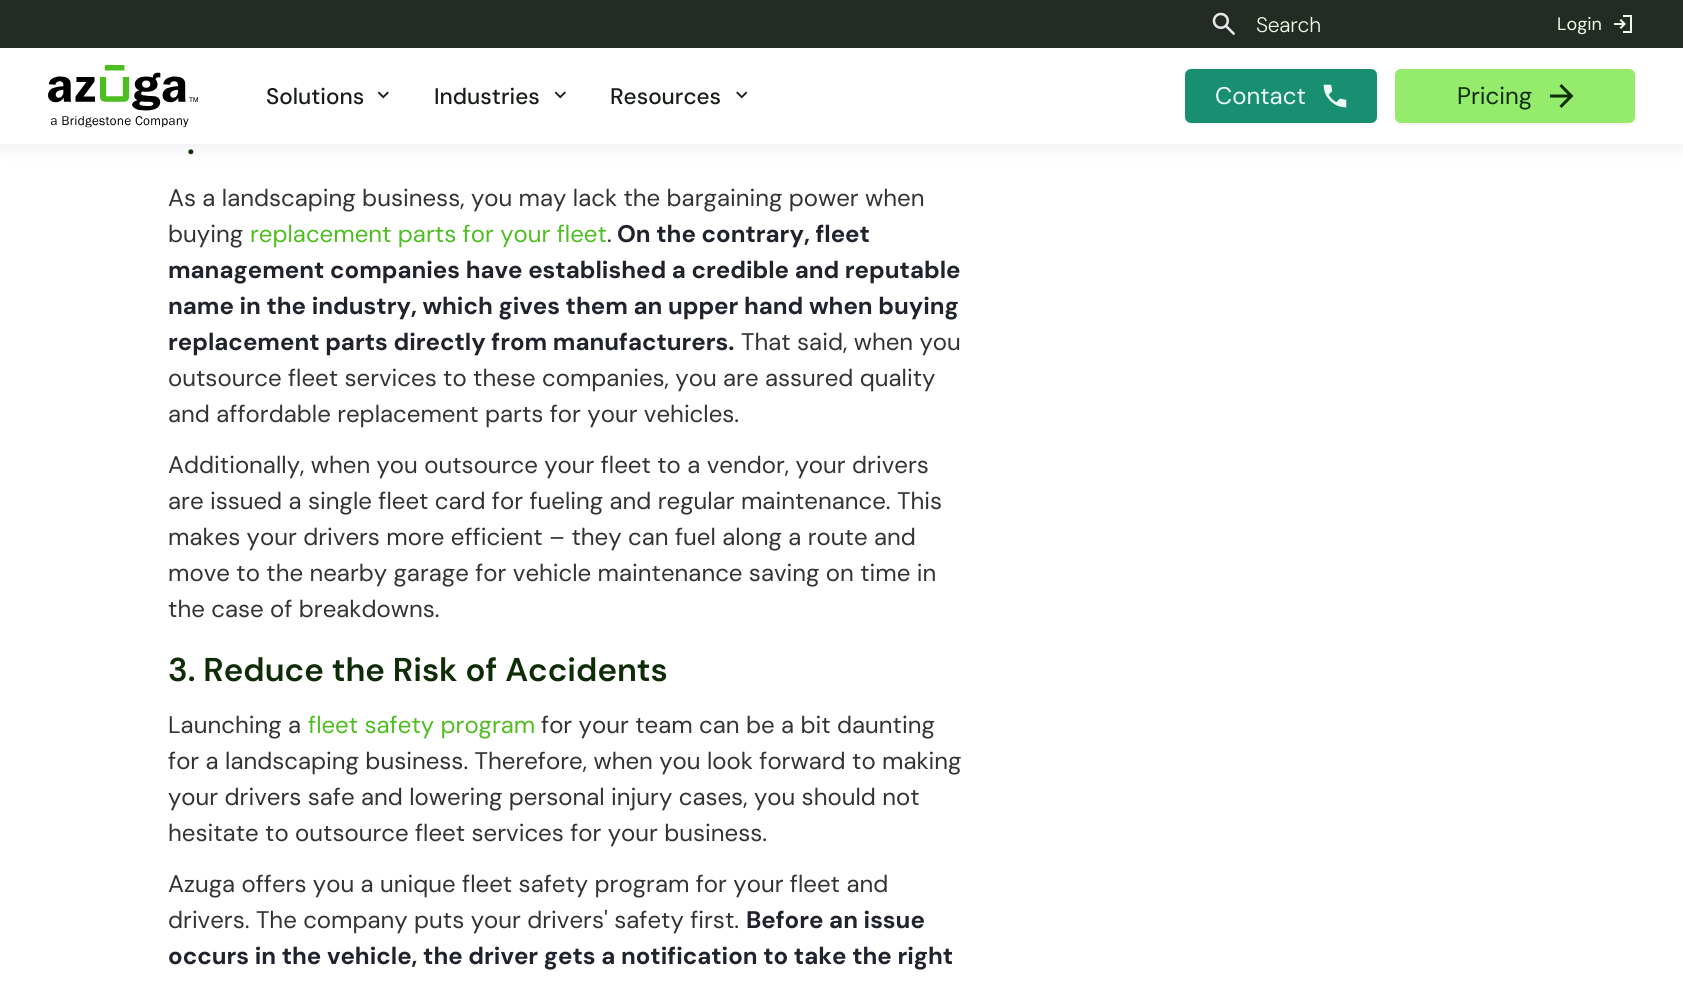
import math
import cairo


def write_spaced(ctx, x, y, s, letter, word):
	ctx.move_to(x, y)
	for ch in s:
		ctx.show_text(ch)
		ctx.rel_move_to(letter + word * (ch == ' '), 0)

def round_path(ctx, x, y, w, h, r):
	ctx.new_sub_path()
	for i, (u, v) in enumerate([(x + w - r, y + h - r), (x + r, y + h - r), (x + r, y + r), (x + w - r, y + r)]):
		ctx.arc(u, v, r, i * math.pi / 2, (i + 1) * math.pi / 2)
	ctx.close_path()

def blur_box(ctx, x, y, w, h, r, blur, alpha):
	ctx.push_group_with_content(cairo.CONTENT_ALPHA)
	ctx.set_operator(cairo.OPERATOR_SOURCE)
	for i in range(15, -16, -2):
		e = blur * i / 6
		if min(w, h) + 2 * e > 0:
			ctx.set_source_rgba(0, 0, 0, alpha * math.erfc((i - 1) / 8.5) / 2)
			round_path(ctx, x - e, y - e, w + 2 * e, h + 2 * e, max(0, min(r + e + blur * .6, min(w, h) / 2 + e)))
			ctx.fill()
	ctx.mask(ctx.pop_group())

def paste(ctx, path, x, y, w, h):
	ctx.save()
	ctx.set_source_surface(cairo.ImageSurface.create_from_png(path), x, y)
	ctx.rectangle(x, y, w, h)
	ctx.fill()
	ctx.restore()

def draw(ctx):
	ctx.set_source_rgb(1, 1, 1)
	ctx.paint()
	ctx.set_source_rgb(0.141, 0.196, 0.259)
	blur_box(ctx, 0, 5, 1683, 144, 0, 9, 0.08)
	ctx.set_source_rgb(1, 1, 1)
	ctx.rectangle(0, 48, 1683, 96)
	ctx.fill()
	ctx.set_source_rgb(0.141, 0.169, 0.141)
	ctx.rectangle(0, 0, 1683, 48)
	ctx.fill()
	paste(ctx, 'media/1.png', 1212, 12, 24, 24)
	ctx.select_font_face('DM Sans Light')
	ctx.set_font_size(21)
	ctx.set_source_rgb(0.937, 0.992, 0.91)
	write_spaced(ctx, 1256, 32, 'Search', -0.25, 0)
	ctx.select_font_face('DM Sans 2')
	ctx.set_font_size(18)
	ctx.move_to(1557, 30)
	ctx.show_text('Login')
	paste(ctx, 'media/2.png', 1614, 15, 18, 18)
	paste(ctx, 'media/3.png', 48, 65, 150, 63)
	ctx.select_font_face('DM Sans Medium')
	ctx.set_font_size(22.5)
	ctx.set_source_rgb(0.09, 0.114, 0.086)
	ctx.move_to(266, 104)
	ctx.show_text('Solutions')
	paste(ctx, 'media/4.png', 377, 91, 12, 8)
	ctx.move_to(434, 104)
	ctx.show_text('Industries')
	paste(ctx, 'media/4.png', 554, 91, 12, 8)
	ctx.move_to(610, 104)
	ctx.show_text('Resources')
	paste(ctx, 'media/5.png', 736, 91, 12, 8)
	ctx.set_source_rgb(0.094, 0.561, 0.443)
	round_path(ctx, 1185, 69, 192, 54, 6)
	ctx.fill()
	ctx.select_font_face('DM Sans 2')
	ctx.set_font_size(24)
	ctx.set_source_rgb(0.933, 0.984, 0.965)
	ctx.move_to(1215, 104)
	ctx.show_text('Contact')
	paste(ctx, 'media/6.png', 1323, 84, 24, 24)
	ctx.set_source_rgb(0.063, 0.094, 0.157)
	blur_box(ctx, 1395, 71, 240, 54, 6, 1.5, 0.05)
	ctx.set_source_rgb(0.584, 0.918, 0.424)
	round_path(ctx, 1395, 69, 240, 54, 6)
	ctx.fill()
	ctx.set_source_rgb(0.055, 0.173, 0.027)
	ctx.move_to(1457, 104)
	ctx.show_text('Pricing')
	paste(ctx, 'media/7.png', 1550, 84, 24, 24)
	ctx.select_font_face('DM Sans SemiBold')
	ctx.set_font_size(33)
	ctx.move_to(187, 154)
	ctx.show_text('.')
	ctx.select_font_face('DM Sans')
	ctx.set_font_size(24)
	ctx.set_source_rgb(0.2, 0.2, 0.2)
	ctx.move_to(168, 206)
	ctx.show_text('As a landscaping business, you may lack the bargaining power when')
	ctx.move_to(168, 242)
	ctx.show_text('buying')
	ctx.set_source_rgb(0.306, 0.741, 0.125)
	ctx.move_to(250, 242)
	ctx.show_text('replacement parts for your fleet')
	ctx.set_source_rgb(0.2, 0.2, 0.2)
	ctx.move_to(607, 242)
	ctx.show_text('.')
	ctx.select_font_face('DM Sans', cairo.FONT_SLANT_NORMAL, cairo.FONT_WEIGHT_BOLD)
	ctx.set_source_rgb(0.125, 0.137, 0.176)
	for x, y, s in [
		(617, 242, 'On the contrary, fleet'),
		(168, 278, 'management companies have established a credible and reputable'),
		(168, 314, 'name in the industry, which gives them an upper hand when buying'),
		(168, 350, 'replacement parts directly from manufacturers.'),
	]:
		ctx.move_to(x, y)
		ctx.show_text(s)
	ctx.select_font_face('DM Sans')
	ctx.set_source_rgb(0.2, 0.2, 0.2)
	for x, y, s in [
		(741, 350, 'That said, when you'),
		(168, 386, 'outsource fleet services to these companies, you are assured quality'),
		(168, 422, 'and affordable replacement parts for your vehicles.'),
		(168, 473, 'Additionally, when you outsource your fleet to a vendor, your drivers'),
		(168, 509, 'are issued a single fleet card for fueling and regular maintenance. This'),
		(168, 545, 'makes your drivers more efficient – they can fuel along a route and'),
		(168, 581, 'move to the nearby garage for vehicle maintenance saving on time in'),
		(168, 617, 'the case of breakdowns.'),
	]:
		ctx.move_to(x, y)
		ctx.show_text(s)
	ctx.select_font_face('DM Sans SemiBold')
	ctx.set_font_size(33)
	ctx.set_source_rgb(0.055, 0.173, 0.027)
	ctx.move_to(168, 681)
	ctx.show_text('3. Reduce the Risk of Accidents')
	ctx.select_font_face('DM Sans')
	ctx.set_font_size(24)
	ctx.set_source_rgb(0.2, 0.2, 0.2)
	ctx.move_to(168, 733)
	ctx.show_text('Launching a')
	ctx.set_source_rgb(0.306, 0.741, 0.125)
	ctx.move_to(308, 733)
	ctx.show_text('fleet safety program')
	ctx.set_source_rgb(0.2, 0.2, 0.2)
	for x, y, s in [
		(541, 733, 'for your team can be a bit daunting'),
		(168, 769, 'for a landscaping business. Therefore, when you look forward to making'),
		(168, 805, 'your drivers safe and lowering personal injury cases, you should not'),
		(168, 841, 'hesitate to outsource fleet services for your business.'),
		(168, 892, 'Azuga offers you a unique fleet safety program for your fleet and'),
		(168, 928, 'drivers. The company puts your drivers\' safety first.'),
	]:
		ctx.move_to(x, y)
		ctx.show_text(s)
	ctx.select_font_face('DM Sans', cairo.FONT_SLANT_NORMAL, cairo.FONT_WEIGHT_BOLD)
	ctx.set_source_rgb(0.125, 0.137, 0.176)
	ctx.move_to(746, 928)
	ctx.show_text('Before an issue')
	ctx.move_to(168, 964)
	ctx.show_text('occurs in the vehicle, the driver gets a notification to take the right')


surface = cairo.ImageSurface(cairo.FORMAT_RGB24, 1683, 991)
ctx = cairo.Context(surface)
options = cairo.FontOptions()
options.set_hint_metrics(cairo.HINT_METRICS_OFF)
options.set_hint_style(cairo.HINT_STYLE_NONE)
ctx.set_font_options(options)
ctx.set_miter_limit(4)
draw(ctx)
surface.write_to_png('image.png')
